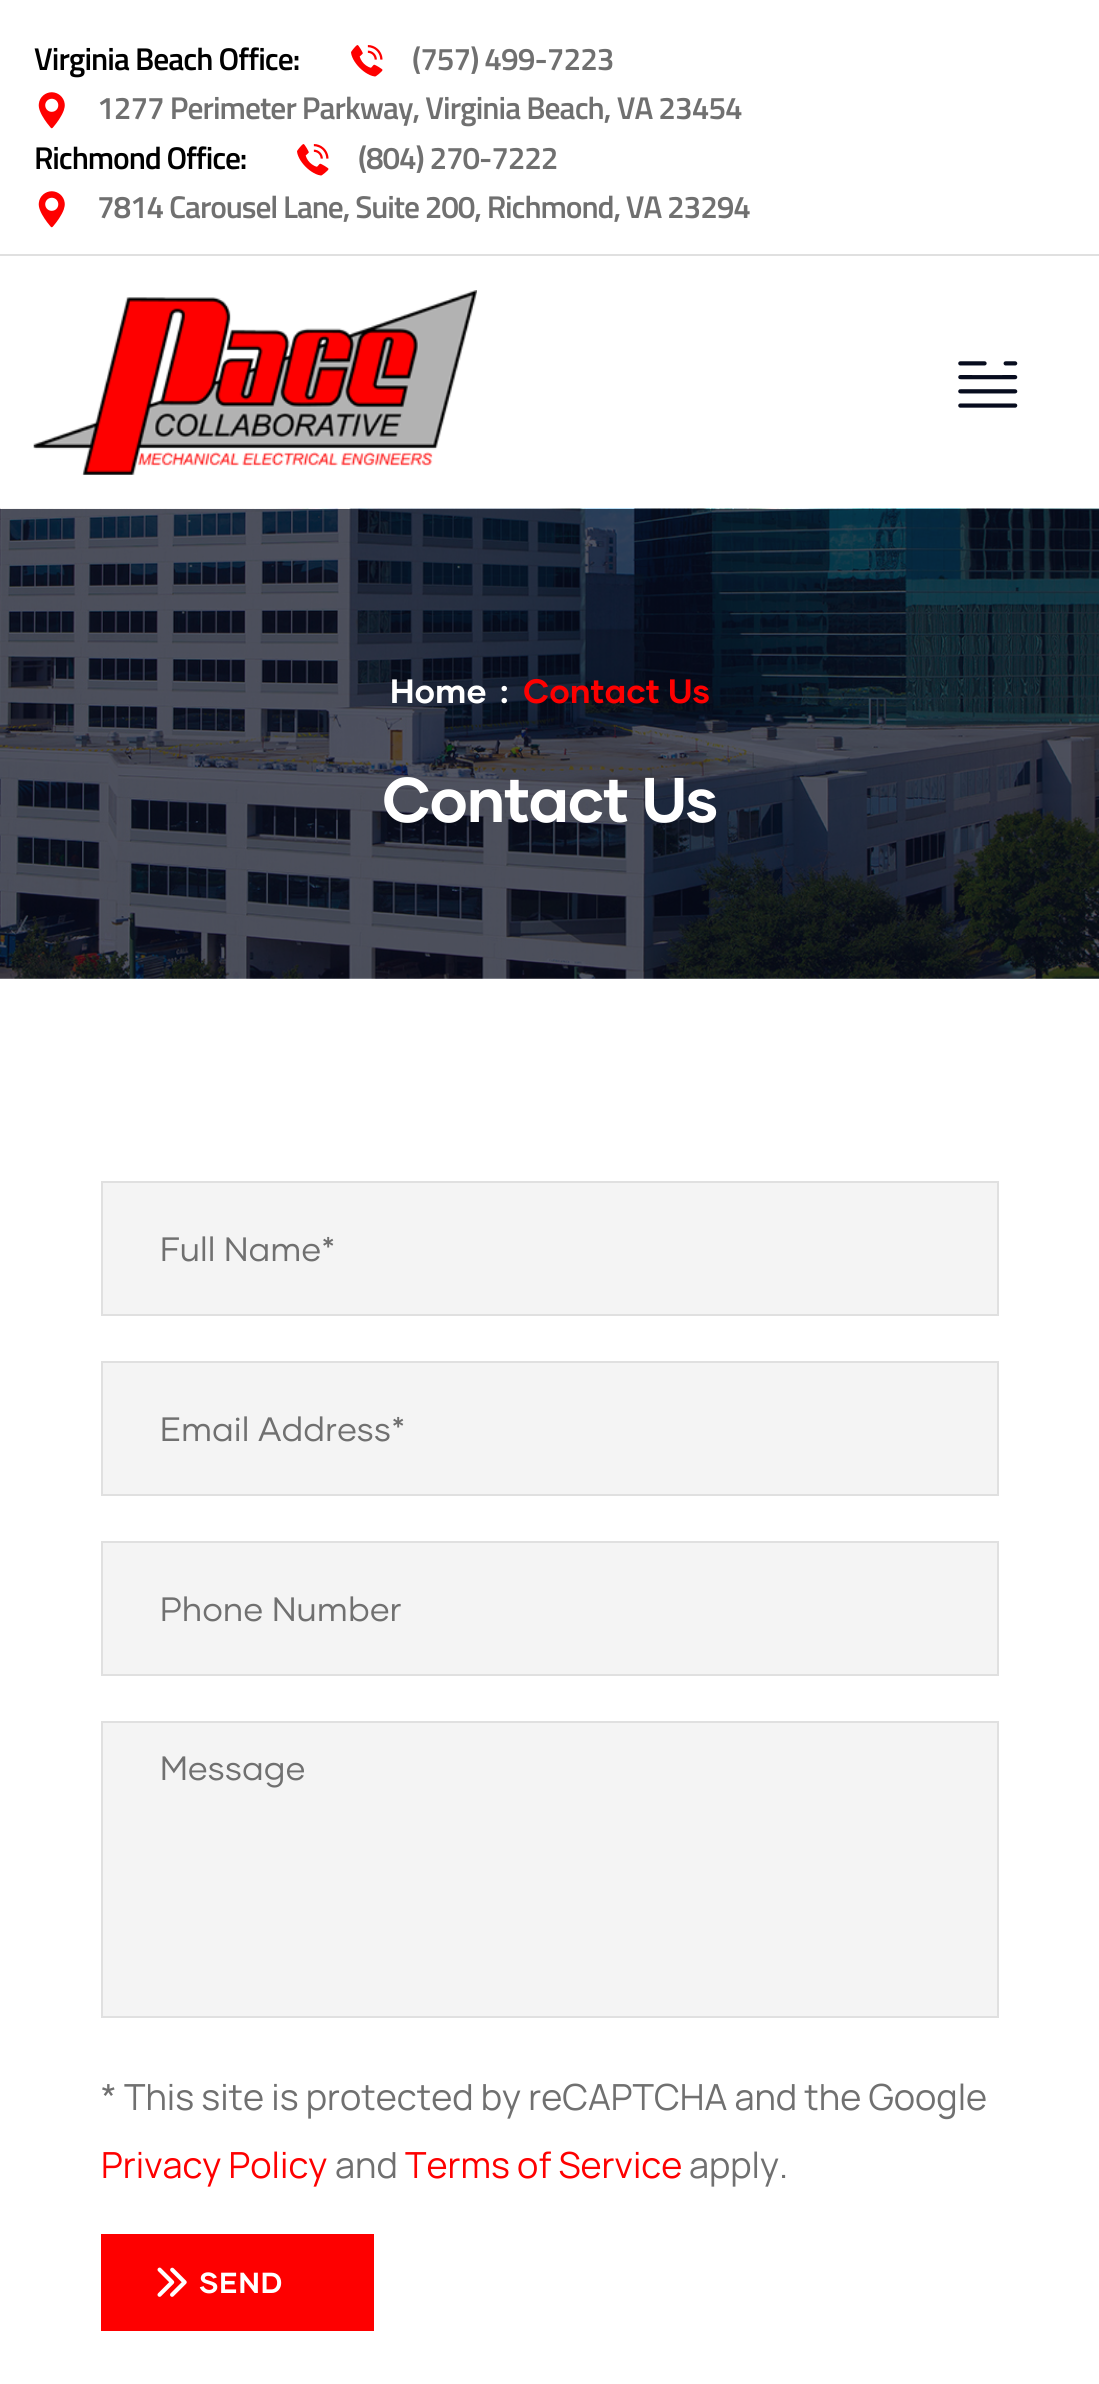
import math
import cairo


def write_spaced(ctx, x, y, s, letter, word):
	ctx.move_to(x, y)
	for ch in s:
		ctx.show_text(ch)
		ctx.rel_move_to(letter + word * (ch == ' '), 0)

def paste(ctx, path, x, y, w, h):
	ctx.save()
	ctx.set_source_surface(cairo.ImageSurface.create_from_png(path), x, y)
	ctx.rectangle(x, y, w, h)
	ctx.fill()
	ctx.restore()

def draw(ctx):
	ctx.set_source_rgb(1, 1, 1)
	ctx.paint()
	ctx.set_source_rgb(0.878, 0.878, 0.878)
	ctx.rectangle(0, 254, 1099, 2)
	ctx.fill()
	ctx.select_font_face('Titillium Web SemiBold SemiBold')
	ctx.set_font_size(31.5)
	ctx.set_source_rgb(0, 0, 0)
	write_spaced(ctx, 34, 70, 'Virginia Beach Office:', -0.95, 0)
	paste(ctx, 'media/1.png', 351, 45, 32, 32)
	ctx.set_source_rgb(0.439, 0.439, 0.439)
	write_spaced(ctx, 412, 70, '(757) 499-7223', -0.95, 0)
	paste(ctx, 'media/2.png', 38, 92, 27, 37)
	write_spaced(ctx, 97, 119, '1277 Perimeter Parkway, Virginia Beach, VA 23454', -0.95, 0)
	ctx.set_source_rgb(0, 0, 0)
	write_spaced(ctx, 34, 169, 'Richmond Office:', -1.1, 0)
	paste(ctx, 'media/1.png', 297, 144, 32, 32)
	ctx.set_source_rgb(0.439, 0.439, 0.439)
	write_spaced(ctx, 358, 169, '(804) 270-7222', -1.1, 0)
	paste(ctx, 'media/2.png', 38, 191, 27, 37)
	write_spaced(ctx, 97, 218, '7814 Carousel Lane, Suite 200, Richmond, VA 23294', -1.1, 0)
	paste(ctx, 'media/3.png', 33, 290, 444, 185)
	paste(ctx, 'media/4.png', 958, 361, 60, 47)
	paste(ctx, 'media/5.png', 0, 508, 1099, 471)
	ctx.select_font_face('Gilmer', cairo.FONT_SLANT_NORMAL, cairo.FONT_WEIGHT_BOLD)
	ctx.set_font_size(33.75)
	ctx.set_source_rgb(1, 1, 1)
	ctx.move_to(390, 703)
	ctx.show_text('Home')
	ctx.move_to(500, 703)
	ctx.show_text(':')
	ctx.set_source_rgb(0.996, 0, 0)
	ctx.move_to(523, 703)
	ctx.show_text('Contact Us')
	ctx.set_font_size(63)
	ctx.set_source_rgb(1, 1, 1)
	write_spaced(ctx, 382, 822, 'Contact Us', -1.4, 0)
	ctx.set_source_rgb(0.957, 0.957, 0.957)
	ctx.rectangle(102, 1182, 896, 133)
	ctx.fill_preserve()
	ctx.set_source_rgb(0.878, 0.878, 0.878)
	ctx.stroke()
	ctx.select_font_face('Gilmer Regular')
	ctx.set_font_size(33.75)
	ctx.set_source_rgb(0.439, 0.439, 0.439)
	ctx.move_to(160, 1261)
	ctx.show_text('Full Name*')
	ctx.set_source_rgb(0.957, 0.957, 0.957)
	ctx.rectangle(102, 1362, 896, 133)
	ctx.fill_preserve()
	ctx.set_source_rgb(0.878, 0.878, 0.878)
	ctx.stroke()
	ctx.set_source_rgb(0.439, 0.439, 0.439)
	ctx.move_to(160, 1441)
	ctx.show_text('Email Address*')
	ctx.set_source_rgb(0.957, 0.957, 0.957)
	ctx.rectangle(102, 1542, 896, 133)
	ctx.fill_preserve()
	ctx.set_source_rgb(0.878, 0.878, 0.878)
	ctx.stroke()
	ctx.set_source_rgb(0.439, 0.439, 0.439)
	ctx.move_to(160, 1621)
	ctx.show_text('Phone Number')
	ctx.set_source_rgb(0.957, 0.957, 0.957)
	ctx.rectangle(102, 1722, 896, 295)
	ctx.fill_preserve()
	ctx.set_source_rgb(0.878, 0.878, 0.878)
	ctx.stroke()
	ctx.set_source_rgb(0.439, 0.439, 0.439)
	ctx.move_to(160, 1780)
	ctx.show_text('Message')
	ctx.select_font_face('Manrope')
	ctx.set_font_size(36)
	ctx.move_to(101, 2110)
	ctx.show_text('* This site is protected by reCAPTCHA and the Google')
	ctx.set_source_rgb(0.996, 0, 0)
	ctx.move_to(101, 2178)
	ctx.show_text('Privacy Policy')
	ctx.set_source_rgb(0.439, 0.439, 0.439)
	ctx.move_to(335, 2178)
	ctx.show_text('and')
	ctx.set_source_rgb(0.996, 0, 0)
	ctx.move_to(405, 2178)
	ctx.show_text('Terms of Service')
	ctx.set_source_rgb(0.439, 0.439, 0.439)
	ctx.move_to(689, 2178)
	ctx.show_text('apply.')
	ctx.set_source_rgb(0.996, 0, 0)
	ctx.rectangle(101, 2234, 273, 97)
	ctx.fill()
	paste(ctx, 'media/6.png', 157, 2267, 30, 30)
	ctx.select_font_face('Gilmer', cairo.FONT_SLANT_NORMAL, cairo.FONT_WEIGHT_BOLD)
	ctx.set_font_size(29)
	ctx.set_source_rgb(1, 1, 1)
	write_spaced(ctx, 199, 2293, 'SEND', 1, 0)


surface = cairo.ImageSurface(cairo.FORMAT_RGB24, 1099, 2384)
ctx = cairo.Context(surface)
options = cairo.FontOptions()
options.set_hint_metrics(cairo.HINT_METRICS_OFF)
options.set_hint_style(cairo.HINT_STYLE_NONE)
ctx.set_font_options(options)
ctx.set_miter_limit(4)
draw(ctx)
surface.write_to_png('image.png')
